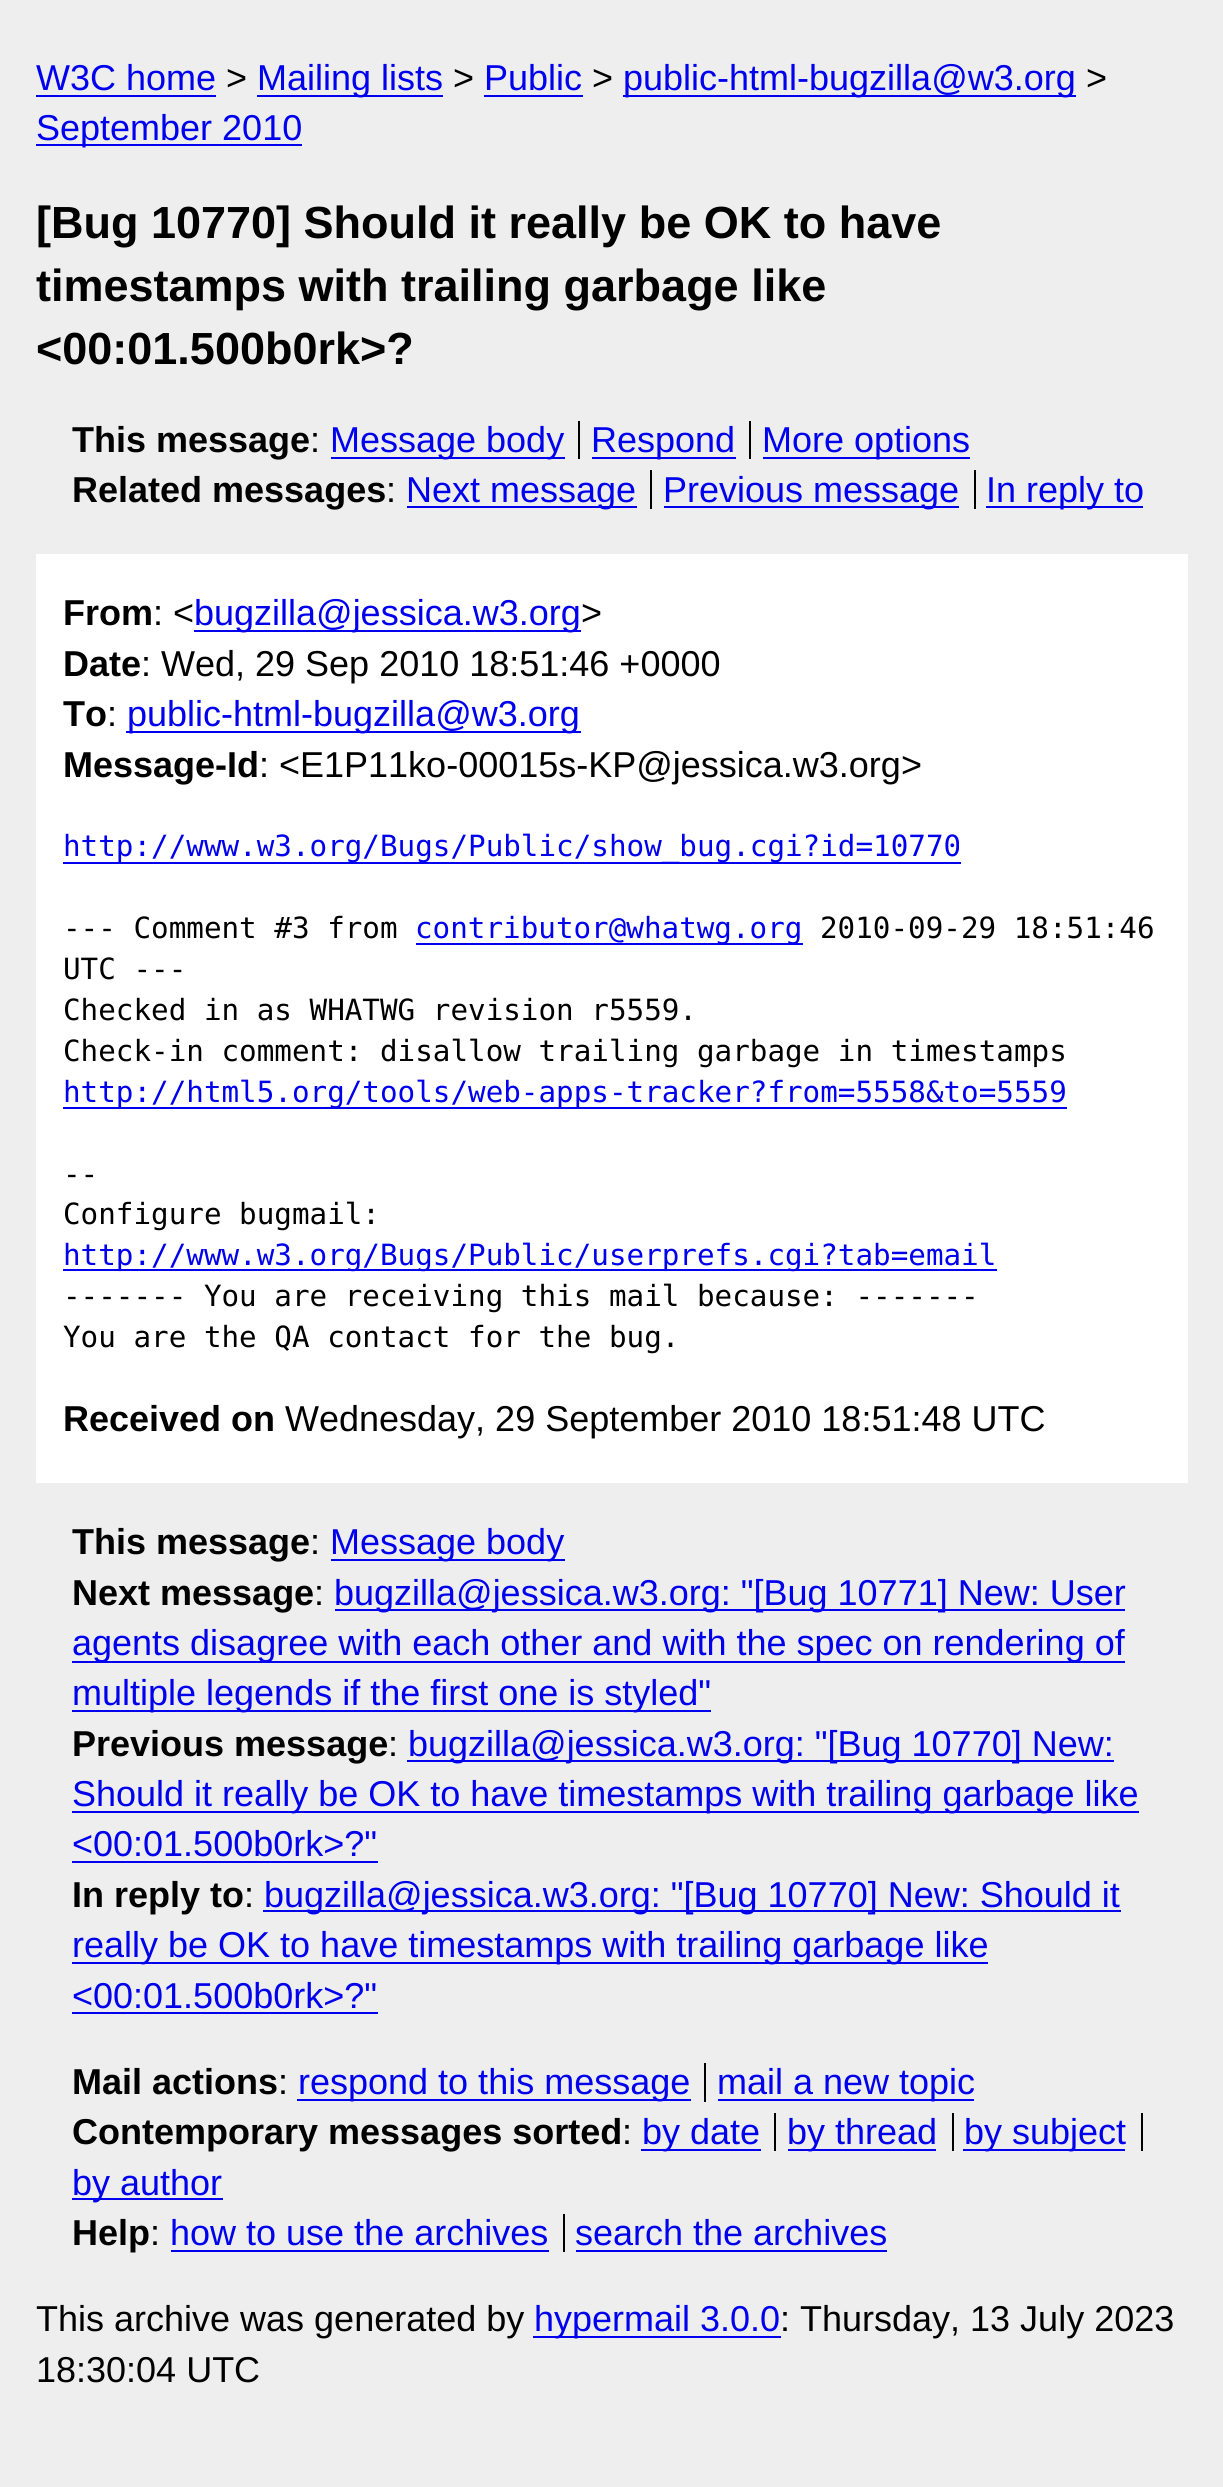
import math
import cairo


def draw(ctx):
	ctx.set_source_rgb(0.933, 0.933, 0.933)
	ctx.paint()
	ctx.select_font_face('Liberation Sans')
	ctx.set_font_size(36)
	ctx.set_source_rgb(0, 0, 0.933)
	ctx.move_to(36, 90)
	ctx.show_text('W3C home')
	ctx.rectangle(36, 95, 180, 2)
	ctx.fill()
	ctx.set_source_rgb(0, 0, 0)
	ctx.move_to(226, 90)
	ctx.show_text('>')
	ctx.set_source_rgb(0, 0, 0.933)
	ctx.rectangle(257, 95, 186, 2)
	ctx.fill()
	ctx.move_to(257, 90)
	ctx.show_text('Mailing lists')
	ctx.set_source_rgb(0, 0, 0)
	ctx.move_to(453, 90)
	ctx.show_text('>')
	ctx.set_source_rgb(0, 0, 0.933)
	ctx.move_to(484, 90)
	ctx.show_text('Public')
	ctx.rectangle(484, 95, 99, 2)
	ctx.fill()
	ctx.set_source_rgb(0, 0, 0)
	ctx.move_to(592, 90)
	ctx.show_text('>')
	ctx.set_source_rgb(0, 0, 0.933)
	ctx.rectangle(623, 95, 453, 2)
	ctx.fill()
	ctx.move_to(623, 90)
	ctx.show_text('public-html-bugzilla@w3.org')
	ctx.set_source_rgb(0, 0, 0)
	ctx.move_to(1086, 90)
	ctx.show_text('>')
	ctx.set_source_rgb(0, 0, 0.933)
	ctx.rectangle(36, 144, 266, 2)
	ctx.fill()
	ctx.move_to(36, 140)
	ctx.show_text('September 2010')
	ctx.select_font_face('Liberation Sans', cairo.FONT_SLANT_NORMAL, cairo.FONT_WEIGHT_BOLD)
	ctx.set_font_size(45)
	ctx.set_source_rgb(0, 0, 0)
	for x, y, s in [
		(36, 238, '[Bug 10770] Should it really be OK to have'),
		(36, 301, 'timestamps with trailing garbage like'),
		(36, 364, '<00:01.500b0rk>?'),
	]:
		ctx.move_to(x, y)
		ctx.show_text(s)
	ctx.set_font_size(36)
	ctx.move_to(72, 452)
	ctx.show_text('This message')
	ctx.select_font_face('Liberation Sans')
	ctx.move_to(310, 452)
	ctx.show_text(':')
	ctx.set_source_rgb(0, 0, 0.933)
	ctx.rectangle(331, 457, 234, 2)
	ctx.fill()
	ctx.move_to(330, 452)
	ctx.show_text('Message body')
	ctx.set_source_rgb(0, 0, 0)
	ctx.rectangle(578, 421, 2, 38)
	ctx.fill()
	ctx.set_source_rgb(0, 0, 0.933)
	ctx.rectangle(592, 457, 144, 2)
	ctx.fill()
	ctx.move_to(591, 452)
	ctx.show_text('Respond')
	ctx.rectangle(763, 457, 207, 2)
	ctx.fill()
	ctx.move_to(762, 452)
	ctx.show_text('More options')
	ctx.set_source_rgb(0, 0, 0)
	ctx.rectangle(749, 421, 2, 38)
	ctx.fill()
	ctx.select_font_face('Liberation Sans', cairo.FONT_SLANT_NORMAL, cairo.FONT_WEIGHT_BOLD)
	ctx.move_to(72, 502)
	ctx.show_text('Related messages')
	ctx.select_font_face('Liberation Sans')
	ctx.move_to(386, 502)
	ctx.show_text(':')
	ctx.set_source_rgb(0, 0, 0.933)
	ctx.rectangle(407, 506, 230, 2)
	ctx.fill()
	ctx.move_to(406, 502)
	ctx.show_text('Next message')
	ctx.rectangle(664, 506, 295, 2)
	ctx.fill()
	ctx.move_to(663, 502)
	ctx.show_text('Previous message')
	ctx.set_source_rgb(0, 0, 0)
	ctx.rectangle(650, 470, 2, 39)
	ctx.fill()
	ctx.set_source_rgb(0, 0, 0.933)
	ctx.rectangle(986, 506, 157, 2)
	ctx.fill()
	ctx.move_to(986, 502)
	ctx.show_text('In reply to')
	ctx.set_source_rgb(0, 0, 0)
	ctx.rectangle(974, 470, 2, 39)
	ctx.fill()
	ctx.set_source_rgb(1, 1, 1)
	ctx.rectangle(36, 554, 1152, 929)
	ctx.fill()
	ctx.select_font_face('Liberation Sans', cairo.FONT_SLANT_NORMAL, cairo.FONT_WEIGHT_BOLD)
	ctx.set_source_rgb(0, 0, 0)
	ctx.move_to(63, 625)
	ctx.show_text('From')
	ctx.select_font_face('Liberation Sans')
	ctx.move_to(153, 625)
	ctx.show_text(': <')
	ctx.set_source_rgb(0, 0, 0.933)
	ctx.rectangle(194, 630, 387, 2)
	ctx.fill()
	ctx.move_to(194, 625)
	ctx.show_text('bugzilla@jessica.w3.org')
	ctx.set_source_rgb(0, 0, 0)
	ctx.move_to(581, 625)
	ctx.show_text('>')
	ctx.select_font_face('Liberation Sans', cairo.FONT_SLANT_NORMAL, cairo.FONT_WEIGHT_BOLD)
	ctx.move_to(63, 676)
	ctx.show_text('Date')
	ctx.select_font_face('Liberation Sans')
	ctx.move_to(141, 676)
	ctx.show_text(': Wed, 29 Sep 2010 18:51:46 +0000')
	ctx.select_font_face('Liberation Sans', cairo.FONT_SLANT_NORMAL, cairo.FONT_WEIGHT_BOLD)
	ctx.move_to(63, 726)
	ctx.show_text('To')
	ctx.select_font_face('Liberation Sans')
	ctx.move_to(107, 726)
	ctx.show_text(':')
	ctx.set_source_rgb(0, 0, 0.933)
	ctx.rectangle(126, 731, 455, 2)
	ctx.fill()
	ctx.move_to(127, 726)
	ctx.show_text('public-html-bugzilla@w3.org')
	ctx.select_font_face('Liberation Sans', cairo.FONT_SLANT_NORMAL, cairo.FONT_WEIGHT_BOLD)
	ctx.set_source_rgb(0, 0, 0)
	ctx.move_to(63, 777)
	ctx.show_text('Message-Id')
	ctx.select_font_face('Liberation Sans')
	ctx.move_to(259, 777)
	ctx.show_text(': <E1P11ko-00015s-KP@jessica.w3.org>')
	ctx.set_source_rgb(0, 0, 0.933)
	ctx.rectangle(63, 862, 898, 2)
	ctx.fill()
	ctx.select_font_face('DejaVu Sans Mono')
	ctx.set_font_size(29.25)
	ctx.move_to(63, 856)
	ctx.show_text('http://www.w3.org/Bugs/Public/show_bug.cgi?id=10770')
	ctx.set_source_rgb(0, 0, 0)
	ctx.move_to(63, 938)
	ctx.show_text('--- Comment #3 from')
	ctx.set_source_rgb(0, 0, 0.933)
	ctx.rectangle(416, 943, 387, 2)
	ctx.fill()
	ctx.move_to(415, 938)
	ctx.show_text('contributor@whatwg.org')
	ctx.set_source_rgb(0, 0, 0)
	for x, y, s in [
		(820, 938, '2010-09-29 18:51:46'),
		(63, 979, 'UTC ---'),
		(63, 1020, 'Checked in as WHATWG revision r5559.'),
		(63, 1061, 'Check-in comment: disallow trailing garbage in timestamps'),
	]:
		ctx.move_to(x, y)
		ctx.show_text(s)
	ctx.set_source_rgb(0, 0, 0.933)
	ctx.rectangle(63, 1107, 1004, 2)
	ctx.fill()
	ctx.move_to(63, 1102)
	ctx.show_text('http://html5.org/tools/web-apps-tracker?from=5558&to=5559')
	ctx.set_source_rgb(0, 0, 0)
	ctx.move_to(63, 1184)
	ctx.show_text('--')
	ctx.move_to(63, 1224)
	ctx.show_text('Configure bugmail:')
	ctx.set_source_rgb(0, 0, 0.933)
	ctx.rectangle(63, 1269, 934, 2)
	ctx.fill()
	ctx.move_to(63, 1265)
	ctx.show_text('http://www.w3.org/Bugs/Public/userprefs.cgi?tab=email')
	ctx.set_source_rgb(0, 0, 0)
	ctx.move_to(63, 1306)
	ctx.show_text('------- You are receiving this mail because: -------')
	ctx.move_to(63, 1347)
	ctx.show_text('You are the QA contact for the bug.')
	ctx.select_font_face('Liberation Sans', cairo.FONT_SLANT_NORMAL, cairo.FONT_WEIGHT_BOLD)
	ctx.set_font_size(36)
	ctx.move_to(63, 1431)
	ctx.show_text('Received on')
	ctx.select_font_face('Liberation Sans')
	ctx.move_to(285, 1431)
	ctx.show_text('Wednesday, 29 September 2010 18:51:48 UTC')
	ctx.select_font_face('Liberation Sans', cairo.FONT_SLANT_NORMAL, cairo.FONT_WEIGHT_BOLD)
	ctx.move_to(72, 1554)
	ctx.show_text('This message')
	ctx.select_font_face('Liberation Sans')
	ctx.move_to(310, 1554)
	ctx.show_text(':')
	ctx.set_source_rgb(0, 0, 0.933)
	ctx.rectangle(331, 1559, 234, 2)
	ctx.fill()
	ctx.move_to(330, 1554)
	ctx.show_text('Message body')
	ctx.select_font_face('Liberation Sans', cairo.FONT_SLANT_NORMAL, cairo.FONT_WEIGHT_BOLD)
	ctx.set_source_rgb(0, 0, 0)
	ctx.move_to(72, 1605)
	ctx.show_text('Next message')
	ctx.select_font_face('Liberation Sans')
	ctx.move_to(314, 1605)
	ctx.show_text(':')
	ctx.set_source_rgb(0, 0, 0.933)
	ctx.rectangle(335, 1609, 790, 2)
	ctx.fill()
	ctx.move_to(334, 1605)
	ctx.show_text('bugzilla@jessica.w3.org: "[Bug 10771] New: User')
	ctx.rectangle(72, 1661, 1053, 2)
	ctx.fill()
	ctx.move_to(72, 1655)
	ctx.show_text('agents disagree with each other and with the spec on rendering of')
	ctx.rectangle(72, 1710, 639, 2)
	ctx.fill()
	ctx.move_to(72, 1705)
	ctx.show_text('multiple legends if the first one is styled"')
	ctx.select_font_face('Liberation Sans', cairo.FONT_SLANT_NORMAL, cairo.FONT_WEIGHT_BOLD)
	ctx.set_source_rgb(0, 0, 0)
	ctx.move_to(72, 1756)
	ctx.show_text('Previous message')
	ctx.select_font_face('Liberation Sans')
	ctx.move_to(388, 1756)
	ctx.show_text(':')
	ctx.set_source_rgb(0, 0, 0.933)
	ctx.rectangle(407, 1760, 707, 2)
	ctx.fill()
	ctx.move_to(408, 1756)
	ctx.show_text('bugzilla@jessica.w3.org: "[Bug 10770] New:')
	ctx.rectangle(72, 1811, 1067, 2)
	ctx.fill()
	ctx.move_to(72, 1806)
	ctx.show_text('Should it really be OK to have timestamps with trailing garbage like')
	ctx.move_to(72, 1856)
	ctx.show_text('<00:01.500b0rk>?"')
	ctx.rectangle(72, 1861, 306, 2)
	ctx.fill()
	ctx.select_font_face('Liberation Sans', cairo.FONT_SLANT_NORMAL, cairo.FONT_WEIGHT_BOLD)
	ctx.set_source_rgb(0, 0, 0)
	ctx.move_to(72, 1907)
	ctx.show_text('In reply to')
	ctx.select_font_face('Liberation Sans')
	ctx.move_to(244, 1907)
	ctx.show_text(':')
	ctx.set_source_rgb(0, 0, 0.933)
	ctx.rectangle(263, 1910, 858, 2)
	ctx.fill()
	ctx.move_to(264, 1907)
	ctx.show_text('bugzilla@jessica.w3.org: "[Bug 10770] New: Should it')
	ctx.rectangle(72, 1962, 916, 2)
	ctx.fill()
	ctx.move_to(72, 1957)
	ctx.show_text('really be OK to have timestamps with trailing garbage like')
	ctx.move_to(72, 2008)
	ctx.show_text('<00:01.500b0rk>?"')
	ctx.rectangle(72, 2012, 306, 2)
	ctx.fill()
	ctx.select_font_face('Liberation Sans', cairo.FONT_SLANT_NORMAL, cairo.FONT_WEIGHT_BOLD)
	ctx.set_source_rgb(0, 0, 0)
	ctx.move_to(72, 2094)
	ctx.show_text('Mail actions')
	ctx.select_font_face('Liberation Sans')
	ctx.move_to(278, 2094)
	ctx.show_text(':')
	ctx.set_source_rgb(0, 0, 0.933)
	ctx.rectangle(297, 2099, 394, 2)
	ctx.fill()
	ctx.move_to(298, 2094)
	ctx.show_text('respond to this message')
	ctx.rectangle(718, 2099, 256, 2)
	ctx.fill()
	ctx.move_to(717, 2094)
	ctx.show_text('mail a new topic')
	ctx.set_source_rgb(0, 0, 0)
	ctx.rectangle(704, 2063, 2, 39)
	ctx.fill()
	ctx.select_font_face('Liberation Sans', cairo.FONT_SLANT_NORMAL, cairo.FONT_WEIGHT_BOLD)
	ctx.move_to(72, 2144)
	ctx.show_text('Contemporary messages sorted')
	ctx.select_font_face('Liberation Sans')
	ctx.move_to(622, 2144)
	ctx.show_text(':')
	ctx.set_source_rgb(0, 0, 0.933)
	ctx.rectangle(641, 2149, 120, 2)
	ctx.fill()
	ctx.move_to(642, 2144)
	ctx.show_text('by date')
	ctx.rectangle(788, 2149, 148, 2)
	ctx.fill()
	ctx.move_to(787, 2144)
	ctx.show_text('by thread')
	ctx.set_source_rgb(0, 0, 0)
	ctx.rectangle(774, 2113, 2, 38)
	ctx.fill()
	ctx.set_source_rgb(0, 0, 0.933)
	ctx.rectangle(963, 2149, 162, 2)
	ctx.fill()
	ctx.move_to(964, 2144)
	ctx.show_text('by subject')
	ctx.set_source_rgb(0, 0, 0)
	ctx.rectangle(952, 2113, 2, 38)
	ctx.rectangle(1141, 2113, 2, 38)
	ctx.fill()
	ctx.set_source_rgb(0, 0, 0.933)
	ctx.rectangle(72, 2198, 151, 2)
	ctx.fill()
	ctx.move_to(72, 2195)
	ctx.show_text('by author')
	ctx.select_font_face('Liberation Sans', cairo.FONT_SLANT_NORMAL, cairo.FONT_WEIGHT_BOLD)
	ctx.set_source_rgb(0, 0, 0)
	ctx.move_to(72, 2245)
	ctx.show_text('Help')
	ctx.select_font_face('Liberation Sans')
	ctx.move_to(150, 2245)
	ctx.show_text(':')
	ctx.set_source_rgb(0, 0, 0.933)
	ctx.move_to(170, 2245)
	ctx.show_text('how to use the archives')
	ctx.rectangle(171, 2250, 378, 2)
	ctx.fill()
	ctx.move_to(575, 2245)
	ctx.show_text('search the archives')
	ctx.set_source_rgb(0, 0, 0)
	ctx.rectangle(563, 2214, 2, 38)
	ctx.fill()
	ctx.set_source_rgb(0, 0, 0.933)
	ctx.rectangle(576, 2250, 311, 2)
	ctx.fill()
	ctx.set_source_rgb(0, 0, 0)
	ctx.move_to(36, 2331)
	ctx.show_text('This archive was generated by')
	ctx.set_source_rgb(0, 0, 0.933)
	ctx.rectangle(533, 2336, 248, 2)
	ctx.fill()
	ctx.move_to(534, 2331)
	ctx.show_text('hypermail 3.0.0')
	ctx.set_source_rgb(0, 0, 0)
	ctx.move_to(780, 2331)
	ctx.show_text(': Thursday, 13 July 2023')
	ctx.move_to(36, 2382)
	ctx.show_text('18:30:04 UTC')


surface = cairo.ImageSurface(cairo.FORMAT_RGB24, 1223, 2487)
ctx = cairo.Context(surface)
options = cairo.FontOptions()
options.set_hint_metrics(cairo.HINT_METRICS_OFF)
options.set_hint_style(cairo.HINT_STYLE_NONE)
ctx.set_font_options(options)
ctx.set_miter_limit(4)
draw(ctx)
surface.write_to_png('image.png')
